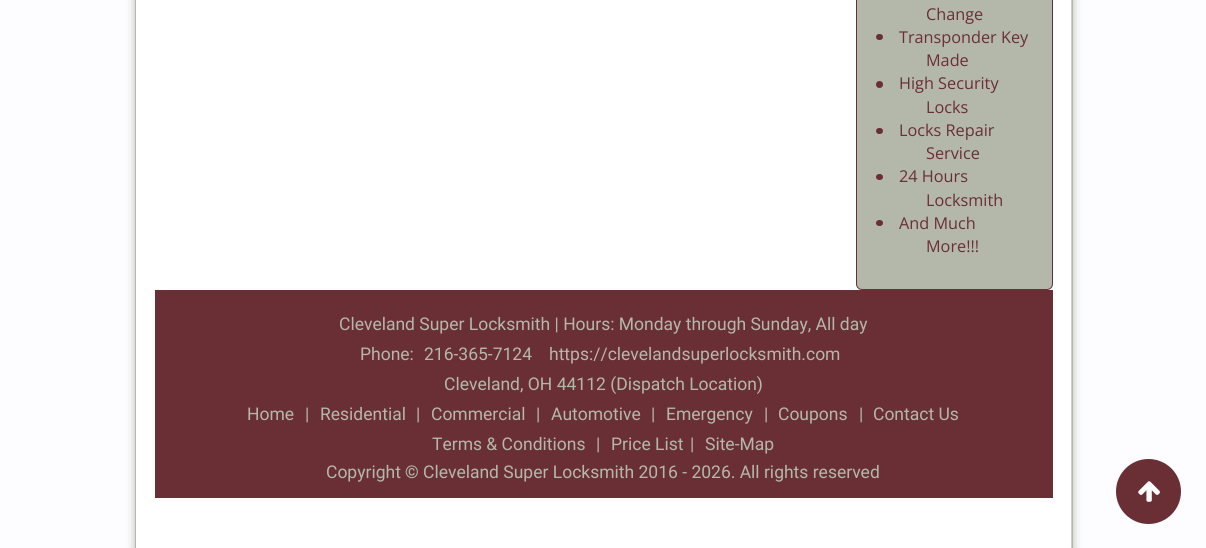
import math
import cairo


def round_path(ctx, x, y, w, h, r):
	ctx.new_sub_path()
	for i, (u, v) in enumerate([(x + w - r, y + h - r), (x + r, y + h - r), (x + r, y + r), (x + w - r, y + r)]):
		ctx.arc(u, v, r, i * math.pi / 2, (i + 1) * math.pi / 2)
	ctx.close_path()

def blur_box(ctx, x, y, w, h, r, blur, alpha):
	ctx.push_group_with_content(cairo.CONTENT_ALPHA)
	ctx.set_operator(cairo.OPERATOR_SOURCE)
	for i in range(15, -16, -2):
		e = blur * i / 6
		if min(w, h) + 2 * e > 0:
			ctx.set_source_rgba(0, 0, 0, alpha * math.erfc((i - 1) / 8.5) / 2)
			round_path(ctx, x - e, y - e, w + 2 * e, h + 2 * e, max(0, min(r + e + blur * .6, min(w, h) / 2 + e)))
			ctx.fill()
	ctx.mask(ctx.pop_group())

def paste(ctx, path, x, y, w, h):
	ctx.save()
	ctx.set_source_surface(cairo.ImageSurface.create_from_png(path), x, y)
	ctx.rectangle(x, y, w, h)
	ctx.fill()
	ctx.restore()

def draw(ctx):
	ctx.set_source_rgb(0.992, 0.992, 1)
	ctx.paint()
	ctx.set_source_rgb(0.706, 0.722, 0.671)
	blur_box(ctx, 135, -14, 938, 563, 0, 4.5, 1)
	ctx.rectangle(135.5, -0.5, 937, 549)
	ctx.set_source_rgb(0.706, 0.722, 0.671)
	ctx.set_line_width(1)
	ctx.stroke()
	ctx.set_source_rgb(1, 1, 1)
	ctx.rectangle(136, 0, 935, 548)
	ctx.fill()
	ctx.set_source_rgb(0.706, 0.722, 0.671)
	round_path(ctx, 856.5, -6.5, 196, 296, 5.5)
	ctx.fill_preserve()
	ctx.set_source_rgb(0.416, 0.18, 0.208)
	ctx.stroke()
	ctx.select_font_face('Open Sans')
	ctx.set_font_size(16.25)
	ctx.move_to(926, 20)
	ctx.show_text('Change')
	round_path(ctx, 876, 34, 7, 6, 3)
	ctx.fill()
	ctx.move_to(899, 43)
	ctx.show_text('Transponder Key')
	ctx.move_to(926, 66)
	ctx.show_text('Made')
	ctx.new_path()
	ctx.arc(879.5, 84.5, 3.5, 0, 2 * math.pi)
	ctx.fill()
	ctx.move_to(899, 89)
	ctx.show_text('High Security')
	ctx.move_to(926, 113)
	ctx.show_text('Locks')
	round_path(ctx, 876, 128, 7, 6, 3)
	ctx.fill()
	ctx.move_to(899, 136)
	ctx.show_text('Locks Repair')
	ctx.move_to(926, 159)
	ctx.show_text('Service')
	round_path(ctx, 876, 174, 7, 6, 3)
	ctx.fill()
	ctx.move_to(899, 182)
	ctx.show_text('24 Hours')
	ctx.move_to(926, 206)
	ctx.show_text('Locksmith')
	round_path(ctx, 876, 220, 7, 6, 3)
	ctx.fill()
	ctx.move_to(899, 229)
	ctx.show_text('And Much')
	ctx.move_to(926, 252)
	ctx.show_text('More!!!')
	ctx.rectangle(155, 290, 898, 208)
	ctx.fill()
	ctx.select_font_face('Roboto')
	ctx.set_font_size(17.5)
	ctx.set_source_rgb(0.706, 0.722, 0.671)
	for x, y, s in [
		(339, 330, 'Cleveland Super Locksmith | Hours: Monday through Sunday, All day'),
		(360, 360, 'Phone:'),
		(424, 360, '216-365-7124'),
		(549, 360, 'https://clevelandsuperlocksmith.com'),
		(444, 390, 'Cleveland, OH 44112 (Dispatch Location)'),
		(247, 420, 'Home'),
		(305, 420, '|'),
		(320, 420, 'Residential'),
		(416, 420, '|'),
		(431, 420, 'Commercial'),
		(536, 420, '|'),
		(551, 420, 'Automotive'),
		(651, 420, '|'),
		(666, 420, 'Emergency'),
		(764, 420, '|'),
		(778, 420, 'Coupons'),
		(859, 420, '|'),
		(873, 420, 'Contact Us'),
		(432, 450, 'Terms & Conditions'),
		(596, 450, '|'),
		(611, 450, 'Price List'),
		(690, 450, '|'),
		(705, 450, 'Site-Map'),
		(326, 478, 'Copyright'),
	]:
		ctx.move_to(x, y)
		ctx.show_text(s)
	ctx.select_font_face('Roboto', cairo.FONT_SLANT_NORMAL, cairo.FONT_WEIGHT_BOLD)
	ctx.move_to(405, 478)
	ctx.show_text('©')
	ctx.select_font_face('Roboto')
	ctx.move_to(423, 478)
	ctx.show_text('Cleveland Super Locksmith 2016 - 2026. All rights reserved')
	ctx.set_source_rgb(0.416, 0.18, 0.208)
	ctx.new_path()
	ctx.arc(1148.5, 491.5, 32.5, 0, 2 * math.pi)
	ctx.fill()
	paste(ctx, 'media/1.png', 1138, 481, 22, 21)


surface = cairo.ImageSurface(cairo.FORMAT_RGB24, 1206, 548)
ctx = cairo.Context(surface)
options = cairo.FontOptions()
options.set_hint_metrics(cairo.HINT_METRICS_OFF)
options.set_hint_style(cairo.HINT_STYLE_NONE)
ctx.set_font_options(options)
ctx.set_miter_limit(4)
draw(ctx)
surface.write_to_png('image.png')
